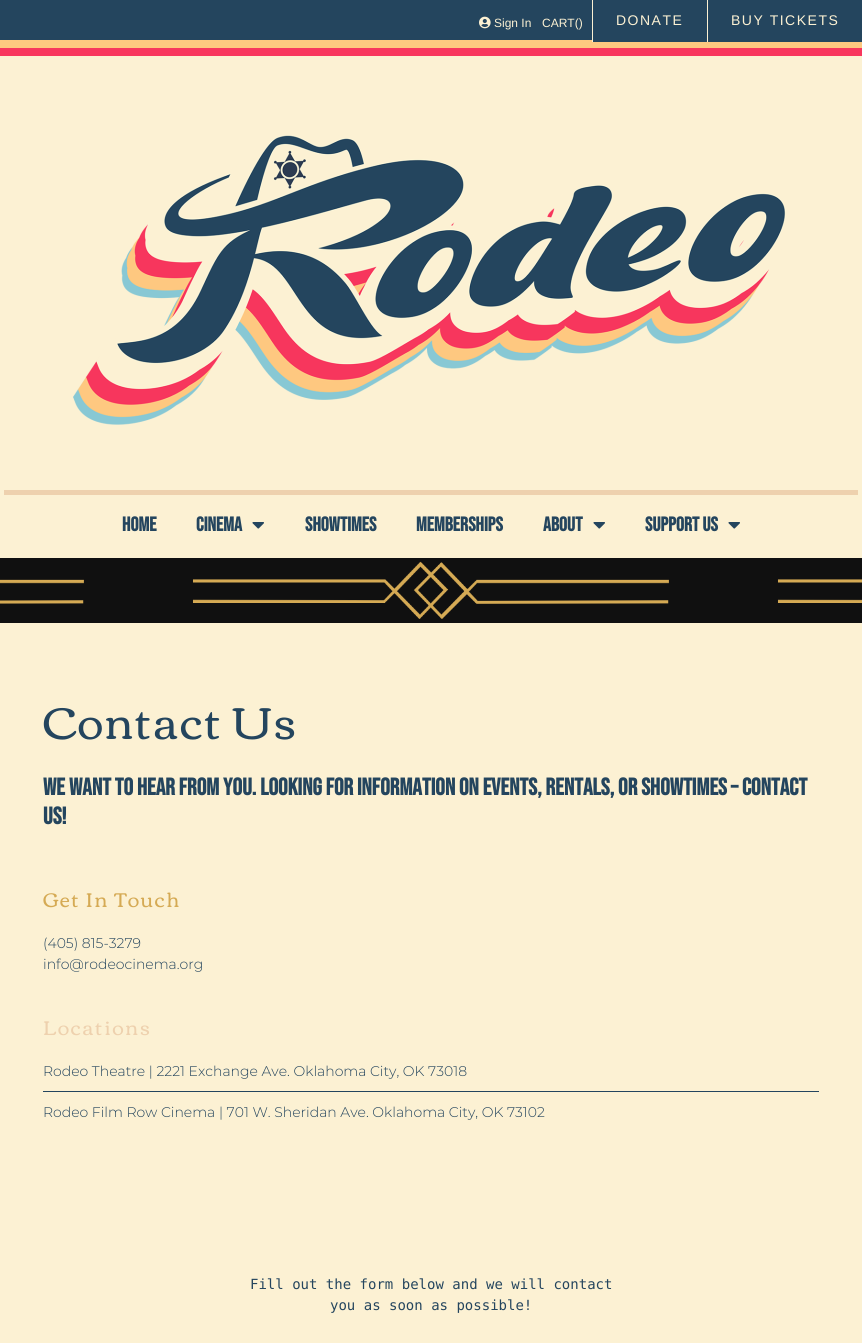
import math
import cairo


def write_spaced(ctx, x, y, s, letter, word):
	ctx.move_to(x, y)
	for ch in s:
		ctx.show_text(ch)
		ctx.rel_move_to(letter + word * (ch == ' '), 0)

def paste(ctx, path, x, y, w, h):
	ctx.save()
	ctx.set_source_surface(cairo.ImageSurface.create_from_png(path), x, y)
	ctx.rectangle(x, y, w, h)
	ctx.fill()
	ctx.restore()

def draw(ctx):
	ctx.set_source_rgb(0.988, 0.945, 0.827)
	ctx.paint()
	ctx.set_source_rgb(0.141, 0.271, 0.369)
	ctx.rectangle(0, 0, 592, 40)
	ctx.fill()
	ctx.set_source_rgb(0.996, 0.784, 0.502)
	ctx.rectangle(0, 40, 862, 8)
	ctx.fill()
	paste(ctx, 'media/1.png', 479, 16, 12, 13)
	ctx.select_font_face('Liberation Sans')
	ctx.set_font_size(12)
	ctx.set_source_rgb(0.988, 0.945, 0.827)
	ctx.move_to(494, 27)
	ctx.show_text('Sign In')
	ctx.move_to(542, 27)
	ctx.show_text('CART()')
	ctx.set_source_rgb(0.141, 0.271, 0.369)
	ctx.rectangle(593, 0, 114, 42)
	ctx.fill()
	ctx.set_source_rgb(0.988, 0.945, 0.827)
	ctx.rectangle(707, 40, 1, 2)
	ctx.rectangle(592, 40, 1, 2)
	ctx.fill()
	ctx.set_font_size(14)
	write_spaced(ctx, 616, 25, 'DONATE', 1.5, 0)
	ctx.set_source_rgb(0.141, 0.271, 0.369)
	ctx.rectangle(708, 0, 154, 42)
	ctx.fill()
	ctx.set_source_rgb(0.988, 0.945, 0.827)
	write_spaced(ctx, 731, 25, 'BUY TICKETS', 1.5, 0)
	ctx.set_source_rgb(0.969, 0.212, 0.365)
	ctx.rectangle(0, 48, 862, 8)
	ctx.fill()
	paste(ctx, 'media/2.png', 73, 135, 713, 290)
	ctx.set_source_rgb(0.933, 0.82, 0.682)
	ctx.rectangle(4, 490, 854, 5)
	ctx.fill()
	ctx.select_font_face('Bebas Neue', cairo.FONT_SLANT_NORMAL, cairo.FONT_WEIGHT_BOLD)
	ctx.set_font_size(20)
	ctx.set_source_rgb(0.141, 0.271, 0.369)
	ctx.move_to(122, 531)
	ctx.show_text('home')
	ctx.move_to(196, 531)
	ctx.show_text('cinema')
	paste(ctx, 'media/3.png', 252, 522, 12, 7)
	for x, y, s in [
		(305, 531, 'showtimes'),
		(416, 531, 'memberships'),
		(543, 531, 'about'),
	]:
		ctx.move_to(x, y)
		ctx.show_text(s)
	paste(ctx, 'media/3.png', 593, 522, 12, 7)
	ctx.move_to(645, 531)
	ctx.show_text('support us')
	paste(ctx, 'media/3.png', 728, 522, 12, 7)
	paste(ctx, 'media/4.png', 0, 558, 862, 65)
	ctx.select_font_face('Corben')
	ctx.set_font_size(45)
	write_spaced(ctx, 43, 739, 'Contact Us', 1.9, 0)
	ctx.select_font_face('Bebas Neue', cairo.FONT_SLANT_NORMAL, cairo.FONT_WEIGHT_BOLD)
	ctx.set_font_size(24)
	ctx.move_to(43, 795)
	ctx.show_text('we want to hear from you. looking for information on events, rentals, or showtimes – contact')
	ctx.move_to(43, 824)
	ctx.show_text('us!')
	ctx.select_font_face('Corben')
	ctx.set_font_size(20)
	ctx.set_source_rgb(0.835, 0.667, 0.329)
	write_spaced(ctx, 43, 907, 'Get In Touch', 1.75, 0)
	ctx.select_font_face('Montserrat Light')
	ctx.set_font_size(14)
	ctx.set_source_rgb(0.141, 0.271, 0.369)
	ctx.move_to(43, 948)
	ctx.show_text('(405) 815-3279')
	ctx.move_to(43, 969)
	ctx.show_text('info@rodeocinema.org')
	ctx.select_font_face('Corben')
	ctx.set_font_size(20)
	ctx.set_source_rgb(0.933, 0.82, 0.682)
	write_spaced(ctx, 43, 1035, 'Locations', 1.75, 0)
	ctx.select_font_face('Montserrat Light')
	ctx.set_font_size(14)
	ctx.set_source_rgb(0.141, 0.271, 0.369)
	ctx.move_to(43, 1076)
	ctx.show_text('Rodeo Theatre | 2221 Exchange Ave. Oklahoma City, OK 73018')
	ctx.rectangle(43, 1091, 776, 1)
	ctx.fill()
	ctx.move_to(43, 1117)
	ctx.show_text('Rodeo Film Row Cinema | 701 W. Sheridan Ave. Oklahoma City, OK 73102')
	ctx.select_font_face('DejaVu Sans Mono')
	ctx.move_to(250, 1289)
	ctx.show_text('Fill out the form below and we will contact')
	ctx.move_to(330, 1310)
	ctx.show_text('you as soon as possible!')


surface = cairo.ImageSurface(cairo.FORMAT_RGB24, 862, 1343)
ctx = cairo.Context(surface)
options = cairo.FontOptions()
options.set_hint_metrics(cairo.HINT_METRICS_OFF)
options.set_hint_style(cairo.HINT_STYLE_NONE)
ctx.set_font_options(options)
ctx.set_miter_limit(4)
draw(ctx)
surface.write_to_png('image.png')
